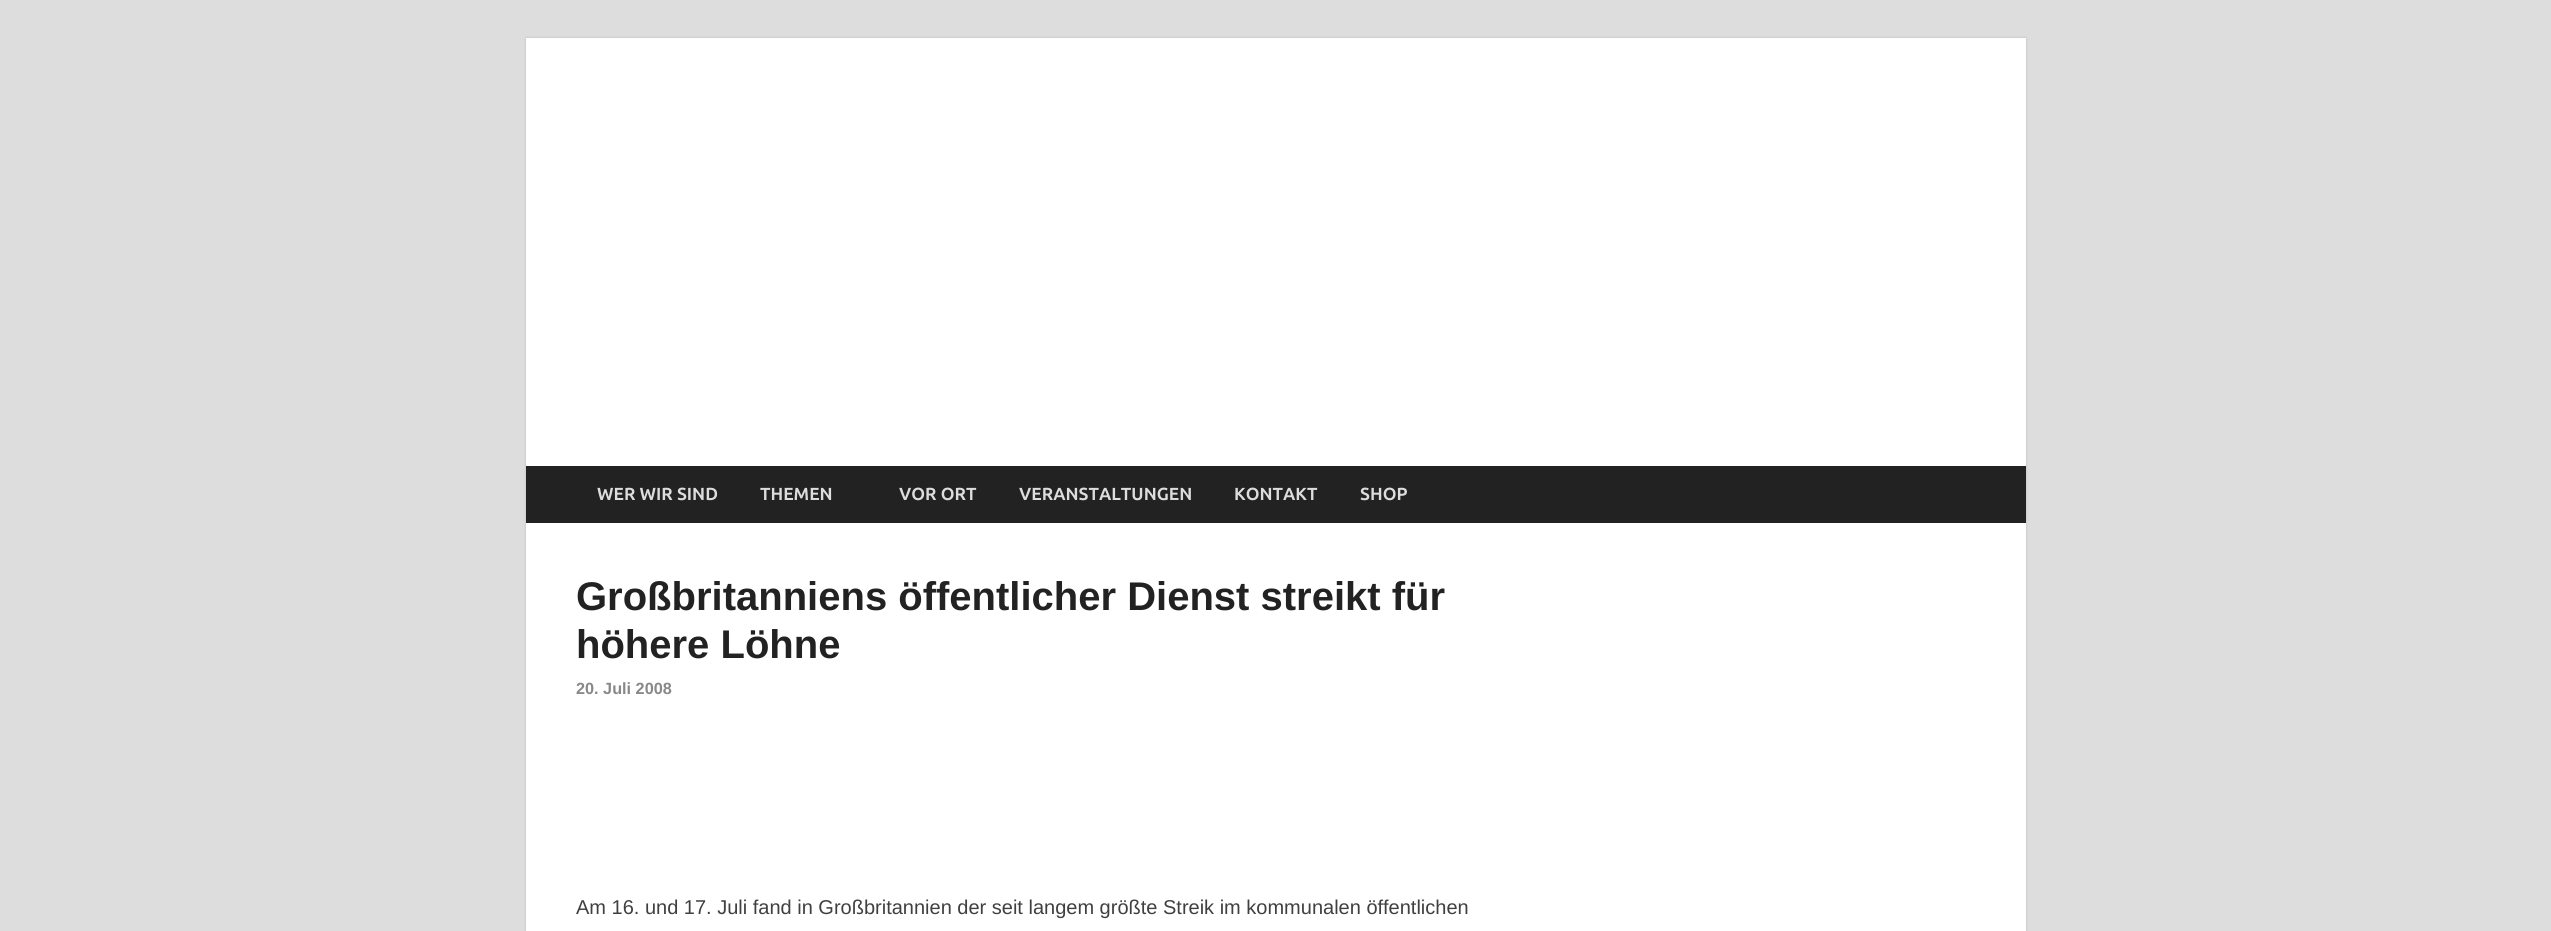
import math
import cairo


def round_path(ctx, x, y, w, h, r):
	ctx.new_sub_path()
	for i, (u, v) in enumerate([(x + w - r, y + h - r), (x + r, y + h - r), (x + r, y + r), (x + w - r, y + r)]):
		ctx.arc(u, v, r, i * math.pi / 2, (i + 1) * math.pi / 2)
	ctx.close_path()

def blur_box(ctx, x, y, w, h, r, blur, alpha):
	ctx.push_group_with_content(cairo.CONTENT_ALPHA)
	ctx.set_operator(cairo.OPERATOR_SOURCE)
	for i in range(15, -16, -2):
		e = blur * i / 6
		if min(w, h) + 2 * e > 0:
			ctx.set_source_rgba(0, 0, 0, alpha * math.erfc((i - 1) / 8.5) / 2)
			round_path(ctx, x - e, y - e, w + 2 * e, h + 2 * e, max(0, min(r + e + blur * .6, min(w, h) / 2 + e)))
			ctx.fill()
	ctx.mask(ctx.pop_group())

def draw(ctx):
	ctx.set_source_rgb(0.867, 0.867, 0.867)
	ctx.paint()
	ctx.set_source_rgb(0.733, 0.733, 0.733)
	blur_box(ctx, 526, 38, 1500, 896, 0, 1, 1)
	ctx.set_source_rgb(1, 1, 1)
	ctx.rectangle(526, 38, 1500, 893)
	ctx.fill()
	ctx.set_source_rgb(0.133, 0.133, 0.133)
	ctx.rectangle(526, 466, 1500, 57)
	ctx.fill()
	ctx.select_font_face('Ubuntu', cairo.FONT_SLANT_NORMAL, cairo.FONT_WEIGHT_BOLD)
	ctx.set_font_size(17.5)
	ctx.set_source_rgb(0.867, 0.867, 0.867)
	for x, y, s in [
		(597, 500, 'WER WIR SIND'),
		(760, 500, 'THEMEN'),
		(899, 500, 'VOR ORT'),
		(1019, 500, 'VERANSTALTUNGEN'),
		(1234, 500, 'KONTAKT'),
		(1360, 500, 'SHOP'),
	]:
		ctx.move_to(x, y)
		ctx.show_text(s)
	ctx.select_font_face('Liberation Sans', cairo.FONT_SLANT_NORMAL, cairo.FONT_WEIGHT_BOLD)
	ctx.set_font_size(40)
	ctx.set_source_rgb(0.133, 0.133, 0.133)
	ctx.move_to(576, 610)
	ctx.show_text('Großbritanniens öffentlicher Dienst streikt für')
	ctx.move_to(576, 658)
	ctx.show_text('höhere Löhne')
	ctx.set_font_size(16.25)
	ctx.set_source_rgb(0.533, 0.533, 0.533)
	ctx.move_to(576, 694)
	ctx.show_text('20. Juli 2008')
	ctx.select_font_face('Liberation Sans')
	ctx.set_font_size(20)
	ctx.set_source_rgb(0.251, 0.251, 0.251)
	ctx.move_to(576, 914)
	ctx.show_text('Am 16. und 17. Juli fand in Großbritannien der seit langem größte Streik im kommunalen öffentlichen')


surface = cairo.ImageSurface(cairo.FORMAT_RGB24, 2551, 931)
ctx = cairo.Context(surface)
options = cairo.FontOptions()
options.set_hint_metrics(cairo.HINT_METRICS_OFF)
options.set_hint_style(cairo.HINT_STYLE_NONE)
ctx.set_font_options(options)
ctx.set_miter_limit(4)
draw(ctx)
surface.write_to_png('image.png')
